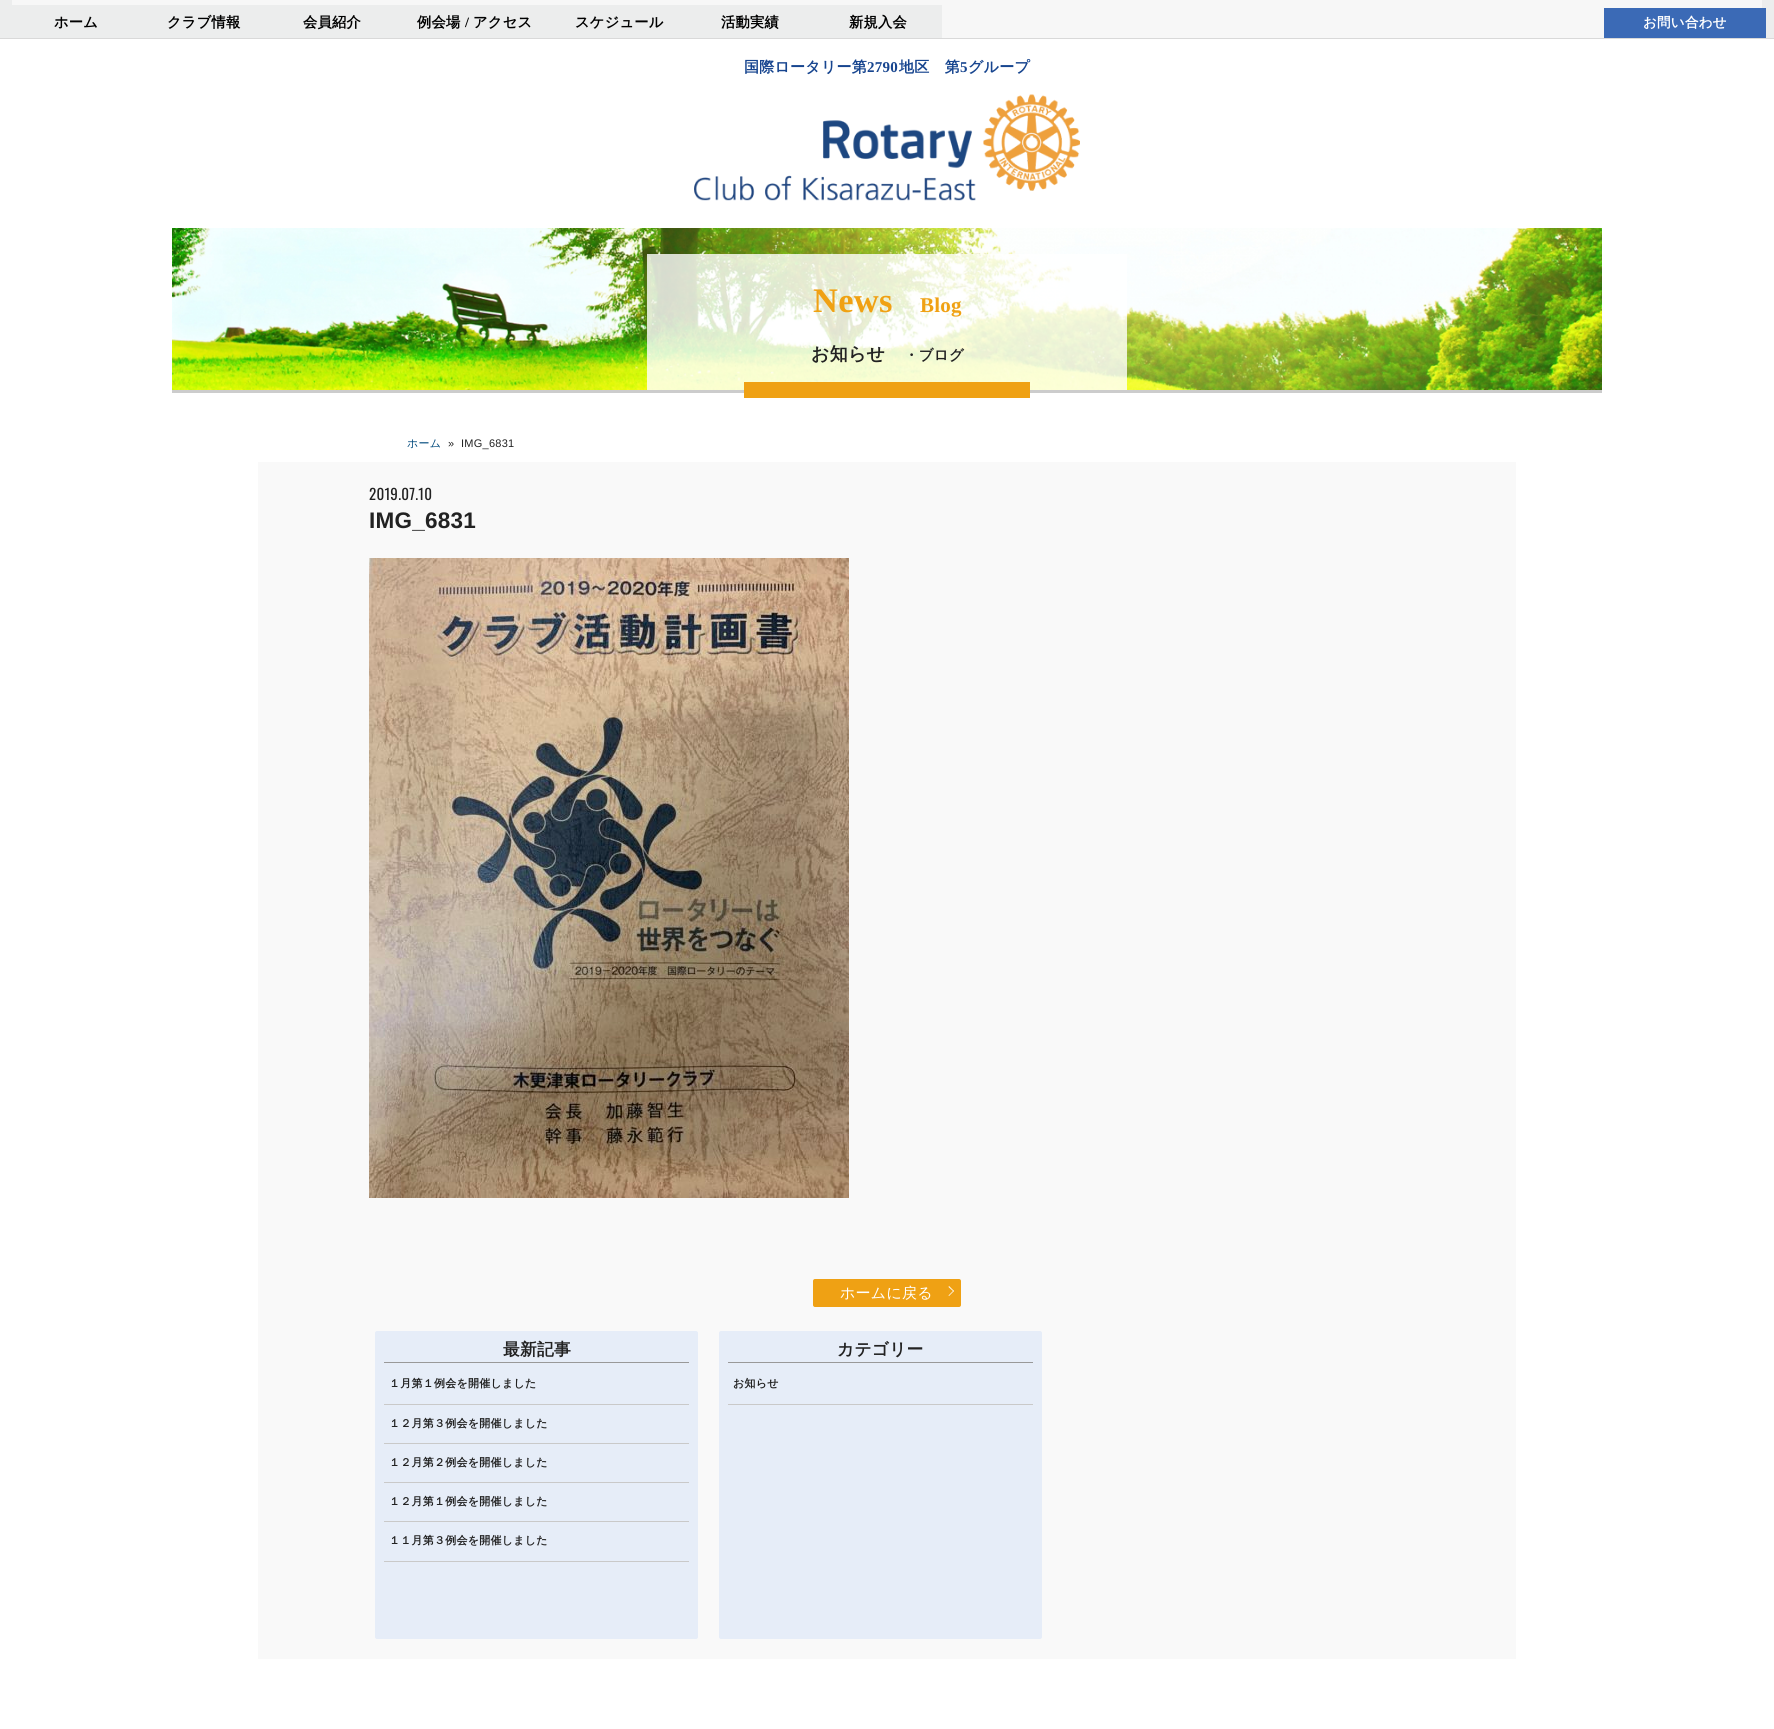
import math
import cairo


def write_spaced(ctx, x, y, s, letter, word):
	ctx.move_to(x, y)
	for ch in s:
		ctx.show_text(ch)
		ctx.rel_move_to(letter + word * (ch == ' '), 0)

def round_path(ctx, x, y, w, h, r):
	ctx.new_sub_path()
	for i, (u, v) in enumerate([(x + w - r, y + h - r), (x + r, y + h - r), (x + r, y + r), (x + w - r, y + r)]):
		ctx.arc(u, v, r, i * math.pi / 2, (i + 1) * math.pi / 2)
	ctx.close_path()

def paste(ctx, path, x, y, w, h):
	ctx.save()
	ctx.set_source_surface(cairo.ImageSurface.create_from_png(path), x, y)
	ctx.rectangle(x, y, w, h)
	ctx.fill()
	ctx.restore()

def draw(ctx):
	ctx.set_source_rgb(1, 1, 1)
	ctx.paint()
	ctx.set_source_rgb(0.925, 0.929, 0.929)
	ctx.rectangle(0, 0, 1774, 38)
	ctx.fill()
	ctx.set_source_rgb(0.851, 0.851, 0.851)
	ctx.rectangle(0, 38, 1774, 1)
	ctx.fill()
	ctx.set_source_rgb(0.965, 0.965, 0.965)
	ctx.rectangle(12, 0, 1750, 38)
	ctx.fill()
	ctx.set_source_rgb(0.925, 0.929, 0.929)
	ctx.rectangle(12, 5, 930, 33)
	ctx.fill()
	ctx.select_font_face('WenQuanYi Zen Hei', cairo.FONT_SLANT_NORMAL, cairo.FONT_WEIGHT_BOLD)
	ctx.set_font_size(14.25)
	ctx.set_source_rgb(0, 0, 0)
	for x, y, s in [
		(54, 27, 'ホーム'),
		(167, 27, 'クラブ情報'),
		(303, 27, '会員紹介'),
		(417, 27, '例会場'),
	]:
		write_spaced(ctx, x, y, s, 0.25, 0)
	ctx.select_font_face('Liberation Serif', cairo.FONT_SLANT_NORMAL, cairo.FONT_WEIGHT_BOLD)
	write_spaced(ctx, 465, 27, '/', 0.25, 0)
	ctx.select_font_face('WenQuanYi Zen Hei', cairo.FONT_SLANT_NORMAL, cairo.FONT_WEIGHT_BOLD)
	for x, y, s in [
		(473, 27, 'アクセス'),
		(575, 27, 'スケジュール'),
		(721, 27, '活動実績'),
		(849, 27, '新規入会'),
	]:
		write_spaced(ctx, x, y, s, 0.25, 0)
	ctx.set_source_rgb(0.231, 0.416, 0.714)
	ctx.rectangle(1604, 8, 162, 30)
	ctx.fill()
	ctx.set_font_size(13.5)
	ctx.set_source_rgb(1, 1, 1)
	write_spaced(ctx, 1643, 27, 'お問い合わせ', 0.25, 0)
	ctx.set_font_size(15)
	ctx.set_source_rgb(0.09, 0.271, 0.561)
	write_spaced(ctx, 744, 72, '国際ロータリー第', 0.25, 0)
	ctx.select_font_face('Liberation Serif', cairo.FONT_SLANT_NORMAL, cairo.FONT_WEIGHT_BOLD)
	write_spaced(ctx, 867, 72, '2790', 0.25, 0)
	ctx.select_font_face('WenQuanYi Zen Hei', cairo.FONT_SLANT_NORMAL, cairo.FONT_WEIGHT_BOLD)
	write_spaced(ctx, 899, 72, '地区　第', 0.25, 0)
	ctx.select_font_face('Liberation Serif', cairo.FONT_SLANT_NORMAL, cairo.FONT_WEIGHT_BOLD)
	write_spaced(ctx, 960, 72, '5', 0.25, 0)
	ctx.select_font_face('WenQuanYi Zen Hei', cairo.FONT_SLANT_NORMAL, cairo.FONT_WEIGHT_BOLD)
	write_spaced(ctx, 968, 72, 'グループ', 0.25, 0)
	paste(ctx, 'media/1.png', 694, 94, 386, 107)
	paste(ctx, 'media/2.png', 172, 228, 1430, 162)
	ctx.set_source_rgb(0.8, 0.8, 0.8)
	ctx.rectangle(172, 390, 1430, 3)
	ctx.fill()
	ctx.set_source_rgba(1, 1, 1, 0.8)
	ctx.rectangle(647, 254, 480, 136)
	ctx.fill()
	ctx.select_font_face('Liberation Serif', cairo.FONT_SLANT_NORMAL, cairo.FONT_WEIGHT_BOLD)
	ctx.set_font_size(34.5)
	ctx.set_source_rgb(0.941, 0.631, 0.075)
	write_spaced(ctx, 813, 312, 'News', 0.25, 0)
	ctx.set_font_size(21)
	write_spaced(ctx, 920, 312, 'Blog', 0.25, 0)
	ctx.select_font_face('WenQuanYi Zen Hei', cairo.FONT_SLANT_NORMAL, cairo.FONT_WEIGHT_BOLD)
	ctx.set_font_size(18)
	ctx.set_source_rgb(0.133, 0.133, 0.133)
	write_spaced(ctx, 811, 360, 'お知らせ', 0.25, 0)
	ctx.set_font_size(14.5)
	write_spaced(ctx, 904, 360, '・ブログ', 0.25, 0)
	ctx.set_source_rgb(0.937, 0.631, 0.082)
	ctx.rectangle(744, 382, 286, 16)
	ctx.fill()
	ctx.select_font_face('WenQuanYi Zen Hei Medium')
	ctx.set_font_size(11)
	ctx.set_source_rgb(0, 0.286, 0.486)
	write_spaced(ctx, 407, 447, 'ホーム', 0.25, 0)
	ctx.select_font_face('Liberation Sans')
	ctx.set_source_rgb(0.133, 0.133, 0.133)
	write_spaced(ctx, 448, 447, '»', 0.25, 0)
	write_spaced(ctx, 461, 447, 'IMG_6831', 0.25, 0)
	ctx.set_source_rgb(0.973, 0.973, 0.976)
	ctx.rectangle(258, 462, 1258, 1197)
	ctx.fill()
	ctx.select_font_face('Oswald')
	ctx.set_font_size(15)
	ctx.set_source_rgb(0.133, 0.133, 0.133)
	write_spaced(ctx, 369, 500, '2019.07.10', 0.25, 0)
	ctx.select_font_face('Liberation Sans', cairo.FONT_SLANT_NORMAL, cairo.FONT_WEIGHT_BOLD)
	ctx.set_font_size(22.5)
	write_spaced(ctx, 369, 528, 'IMG_6831', 0.25, 0)
	paste(ctx, 'media/3.png', 369, 558, 480, 640)
	ctx.set_source_rgb(0.937, 0.631, 0.082)
	round_path(ctx, 813, 1279, 148, 28, 2)
	ctx.fill()
	ctx.select_font_face('WenQuanYi Zen Hei Medium')
	ctx.set_font_size(15)
	ctx.set_source_rgb(1, 1, 1)
	write_spaced(ctx, 840, 1298, 'ホームに戻る', 0.25, 0)
	ctx.new_path()
	ctx.move_to(948.5, 1287)
	ctx.line_to(949, 1286)
	ctx.line_to(954, 1291)
	ctx.line_to(953.5, 1291.5)
	ctx.close_path()
	ctx.fill()
	ctx.new_path()
	ctx.move_to(948.5, 1295.5)
	ctx.line_to(953.5, 1290.5)
	ctx.line_to(954, 1291)
	ctx.line_to(949, 1296)
	ctx.close_path()
	ctx.fill()
	ctx.set_source_rgb(0.902, 0.929, 0.969)
	round_path(ctx, 375, 1331, 323, 308, 2)
	ctx.fill()
	ctx.set_source_rgb(0.6, 0.6, 0.6)
	ctx.rectangle(384, 1362, 305, 1)
	ctx.fill()
	ctx.select_font_face('WenQuanYi Zen Hei', cairo.FONT_SLANT_NORMAL, cairo.FONT_WEIGHT_BOLD)
	ctx.set_font_size(16.75)
	ctx.set_source_rgb(0.133, 0.133, 0.133)
	write_spaced(ctx, 503, 1355, '最新記事', 0.25, 0)
	ctx.set_source_rgb(0.788, 0.788, 0.788)
	ctx.rectangle(384, 1404, 305, 1)
	ctx.fill()
	ctx.set_font_size(11)
	ctx.set_source_rgb(0.133, 0.133, 0.133)
	write_spaced(ctx, 389, 1387, '１月第１例会を開催しました', 0.25, 0)
	ctx.set_source_rgb(0.788, 0.788, 0.788)
	ctx.rectangle(384, 1443, 305, 1)
	ctx.fill()
	ctx.set_source_rgb(0.133, 0.133, 0.133)
	write_spaced(ctx, 389, 1427, '１２月第３例会を開催しました', 0.25, 0)
	ctx.set_source_rgb(0.788, 0.788, 0.788)
	ctx.rectangle(384, 1482, 305, 1)
	ctx.fill()
	ctx.set_source_rgb(0.133, 0.133, 0.133)
	write_spaced(ctx, 389, 1466, '１２月第２例会を開催しました', 0.25, 0)
	ctx.set_source_rgb(0.788, 0.788, 0.788)
	ctx.rectangle(384, 1521, 305, 1)
	ctx.fill()
	ctx.set_source_rgb(0.133, 0.133, 0.133)
	write_spaced(ctx, 389, 1505, '１２月第１例会を開催しました', 0.25, 0)
	ctx.set_source_rgb(0.788, 0.788, 0.788)
	ctx.rectangle(384, 1561, 305, 1)
	ctx.fill()
	ctx.set_source_rgb(0.133, 0.133, 0.133)
	write_spaced(ctx, 389, 1544, '１１月第３例会を開催しました', 0.25, 0)
	ctx.set_source_rgb(0.902, 0.929, 0.969)
	round_path(ctx, 719, 1331, 323, 308, 2)
	ctx.fill()
	ctx.set_source_rgb(0.6, 0.6, 0.6)
	ctx.rectangle(728, 1362, 305, 1)
	ctx.fill()
	ctx.set_font_size(16.75)
	ctx.set_source_rgb(0.133, 0.133, 0.133)
	write_spaced(ctx, 837, 1355, 'カテゴリー', 0.25, 0)
	ctx.set_source_rgb(0.788, 0.788, 0.788)
	ctx.rectangle(728, 1404, 305, 1)
	ctx.fill()
	ctx.set_font_size(11)
	ctx.set_source_rgb(0.133, 0.133, 0.133)
	write_spaced(ctx, 733, 1387, 'お知らせ', 0.25, 0)


surface = cairo.ImageSurface(cairo.FORMAT_RGB24, 1774, 1729)
ctx = cairo.Context(surface)
options = cairo.FontOptions()
options.set_hint_metrics(cairo.HINT_METRICS_OFF)
options.set_hint_style(cairo.HINT_STYLE_NONE)
ctx.set_font_options(options)
ctx.set_miter_limit(4)
draw(ctx)
surface.write_to_png('image.png')
